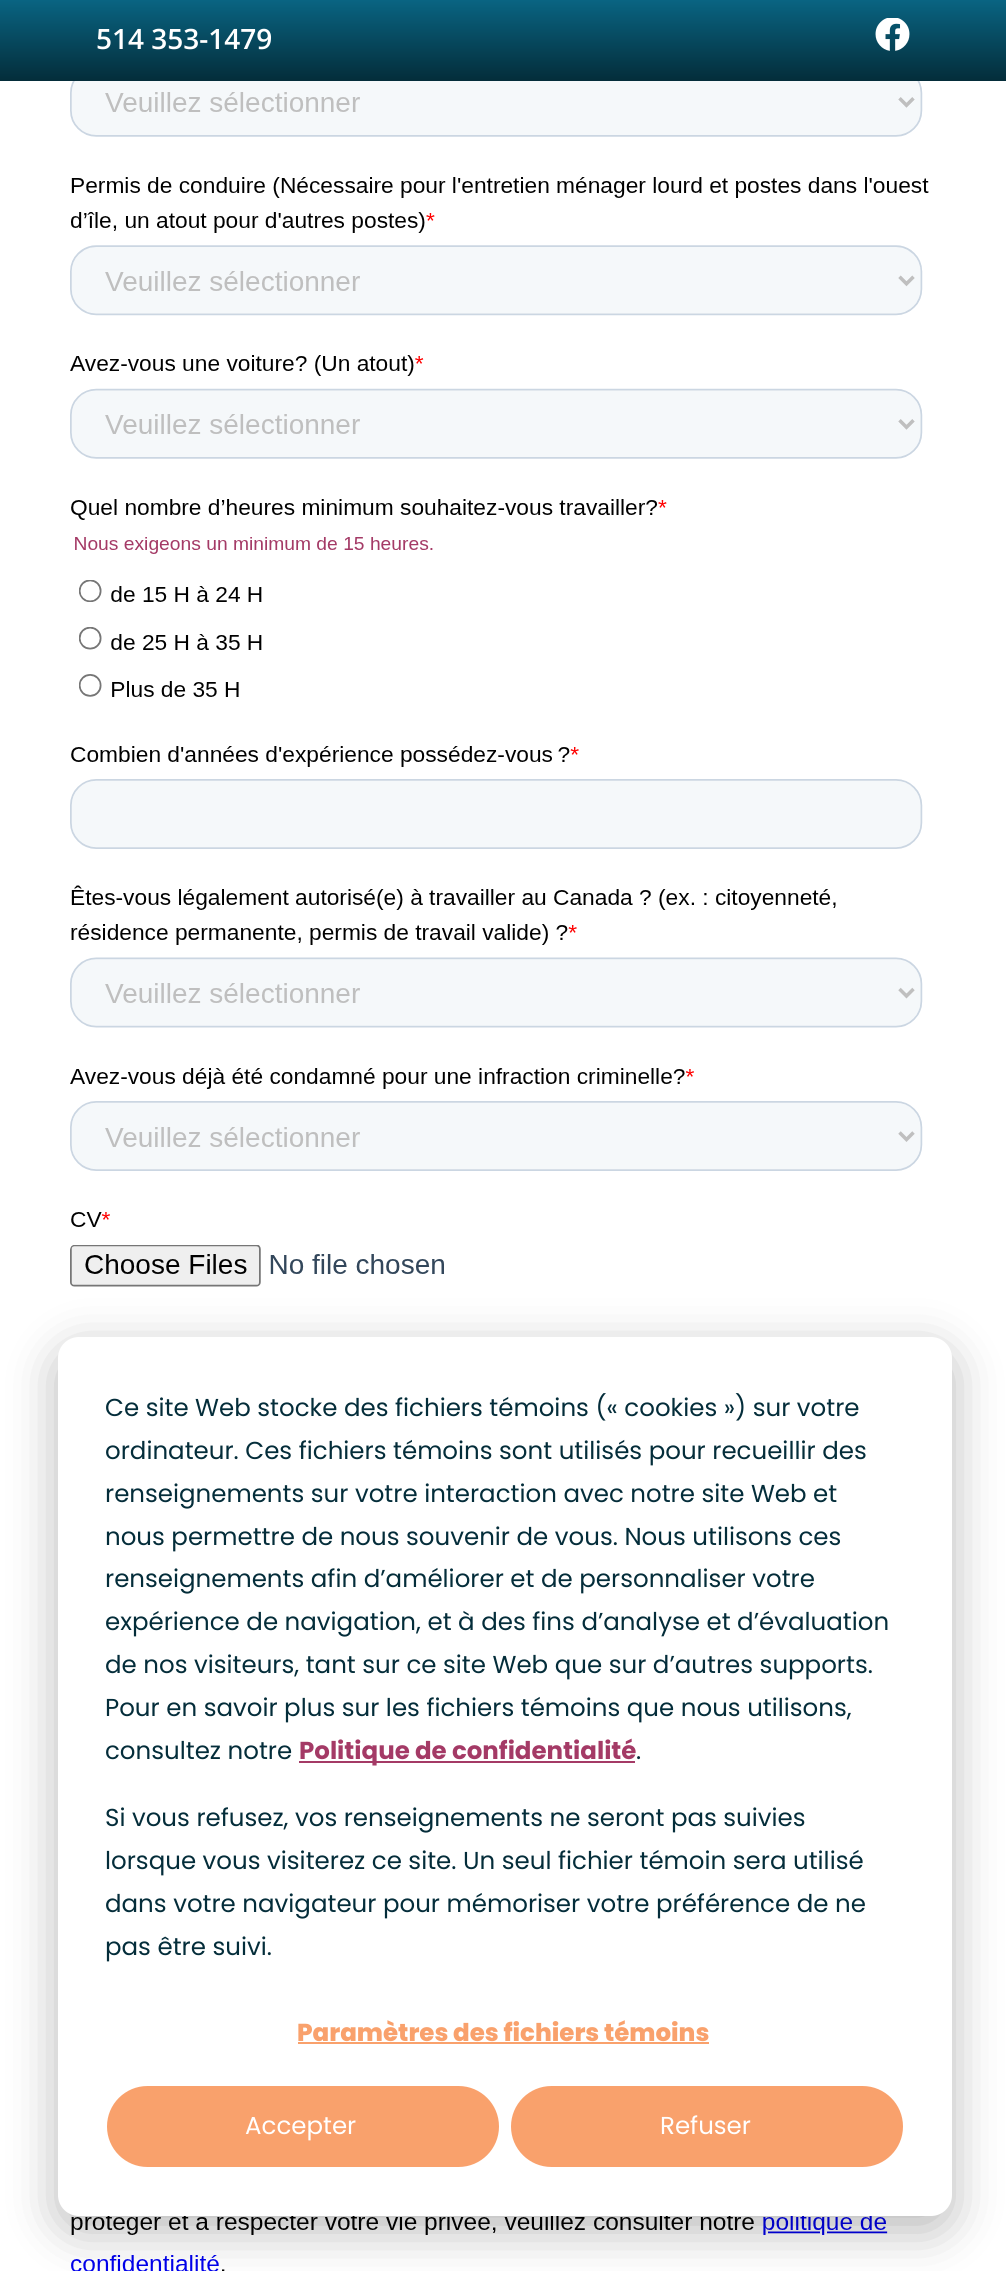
import math
import cairo


def round_path(ctx, x, y, w, h, r):
	ctx.new_sub_path()
	for i, (u, v) in enumerate([(x + w - r, y + h - r), (x + r, y + h - r), (x + r, y + r), (x + w - r, y + r)]):
		ctx.arc(u, v, r, i * math.pi / 2, (i + 1) * math.pi / 2)
	ctx.close_path()

def blur_box(ctx, x, y, w, h, r, blur, alpha):
	ctx.push_group_with_content(cairo.CONTENT_ALPHA)
	ctx.set_operator(cairo.OPERATOR_SOURCE)
	for i in range(15, -16, -2):
		e = blur * i / 6
		if min(w, h) + 2 * e > 0:
			ctx.set_source_rgba(0, 0, 0, alpha * math.erfc((i - 1) / 8.5) / 2)
			round_path(ctx, x - e, y - e, w + 2 * e, h + 2 * e, max(0, min(r + e + blur * .6, min(w, h) / 2 + e)))
			ctx.fill()
	ctx.mask(ctx.pop_group())

def paste(ctx, path, x, y, w, h):
	ctx.save()
	ctx.set_source_surface(cairo.ImageSurface.create_from_png(path), x, y)
	ctx.rectangle(x, y, w, h)
	ctx.fill()
	ctx.restore()

def draw(ctx):
	ctx.set_source_rgb(1, 1, 1)
	ctx.paint()
	gradient = cairo.LinearGradient(503, 0, 503, 81)
	gradient.add_color_stop_rgba(0, 0.035, 0.392, 0.51, 1)
	gradient.add_color_stop_rgba(1, 0.016, 0.176, 0.227, 1)
	ctx.set_source(gradient)
	ctx.rectangle(0, 0, 1006, 81)
	ctx.fill()
	ctx.select_font_face('Open Sans SemiBold')
	ctx.set_font_size(28)
	ctx.set_source_rgb(1, 1, 1)
	ctx.move_to(96, 49)
	ctx.show_text('514 353-1479')
	paste(ctx, 'media/1.png', 875, 18, 35, 33)
	paste(ctx, 'media/2.png', 70, 81, 859, 2190)
	ctx.set_source_rgb(0, 0, 0)
	blur_box(ctx, 58, 1351, 894, 879, 21, 24.5, 0.28)
	ctx.set_source_rgb(1, 1, 1)
	round_path(ctx, 58, 1337, 894, 879, 21)
	ctx.fill()
	ctx.select_font_face('Poppins')
	ctx.set_font_size(24.5)
	ctx.set_source_rgb(0.016, 0.176, 0.227)
	for x, y, s in [
		(105, 1416, 'Ce site Web stocke des fichiers témoins (« cookies ») sur votre'),
		(105, 1459, 'ordinateur. Ces fichiers témoins sont utilisés pour recueillir des'),
		(105, 1502, 'renseignements sur votre interaction avec notre site Web et'),
		(105, 1545, 'nous permettre de nous souvenir de vous. Nous utilisons ces'),
		(105, 1587, 'renseignements afin d’améliorer et de personnaliser votre'),
		(105, 1630, 'expérience de navigation, et à des fins d’analyse et d’évaluation'),
		(105, 1673, 'de nos visiteurs, tant sur ce site Web que sur d’autres supports.'),
		(105, 1716, 'Pour en savoir plus sur les fichiers témoins que nous utilisons,'),
		(105, 1759, 'consultez notre'),
	]:
		ctx.move_to(x, y)
		ctx.show_text(s)
	ctx.set_source_rgb(0.643, 0.227, 0.4)
	ctx.rectangle(299, 1761, 336, 2)
	ctx.fill()
	ctx.select_font_face('Poppins', cairo.FONT_SLANT_NORMAL, cairo.FONT_WEIGHT_BOLD)
	ctx.move_to(299, 1759)
	ctx.show_text('Politique de confidentialité')
	ctx.select_font_face('Poppins')
	ctx.set_source_rgb(0.016, 0.176, 0.227)
	for x, y, s in [
		(636, 1759, '.'),
		(105, 1826, 'Si vous refusez, vos renseignements ne seront pas suivies'),
		(105, 1869, 'lorsque vous visiterez ce site. Un seul fichier témoin sera utilisé'),
		(105, 1912, 'dans votre navigateur pour mémoriser votre préférence de ne'),
		(105, 1955, 'pas être suivi.'),
	]:
		ctx.move_to(x, y)
		ctx.show_text(s)
	ctx.select_font_face('Poppins ExtraBold')
	ctx.set_source_rgb(0.973, 0.631, 0.424)
	ctx.move_to(297, 2041)
	ctx.show_text('Paramètres des fichiers témoins')
	ctx.rectangle(298, 2042, 411, 2)
	ctx.fill()
	round_path(ctx, 108, 2087, 390, 79, 39.5)
	ctx.fill_preserve()
	ctx.stroke()
	ctx.select_font_face('Poppins')
	ctx.set_source_rgb(1, 1, 1)
	ctx.move_to(245, 2134)
	ctx.show_text('Accepter')
	ctx.set_source_rgb(0.973, 0.631, 0.424)
	round_path(ctx, 512, 2087, 390, 79, 39.5)
	ctx.fill_preserve()
	ctx.stroke()
	ctx.set_source_rgb(1, 1, 1)
	ctx.move_to(660, 2134)
	ctx.show_text('Refuser')


surface = cairo.ImageSurface(cairo.FORMAT_RGB24, 1006, 2271)
ctx = cairo.Context(surface)
options = cairo.FontOptions()
options.set_hint_metrics(cairo.HINT_METRICS_OFF)
options.set_hint_style(cairo.HINT_STYLE_NONE)
ctx.set_font_options(options)
ctx.set_miter_limit(4)
draw(ctx)
surface.write_to_png('image.png')
